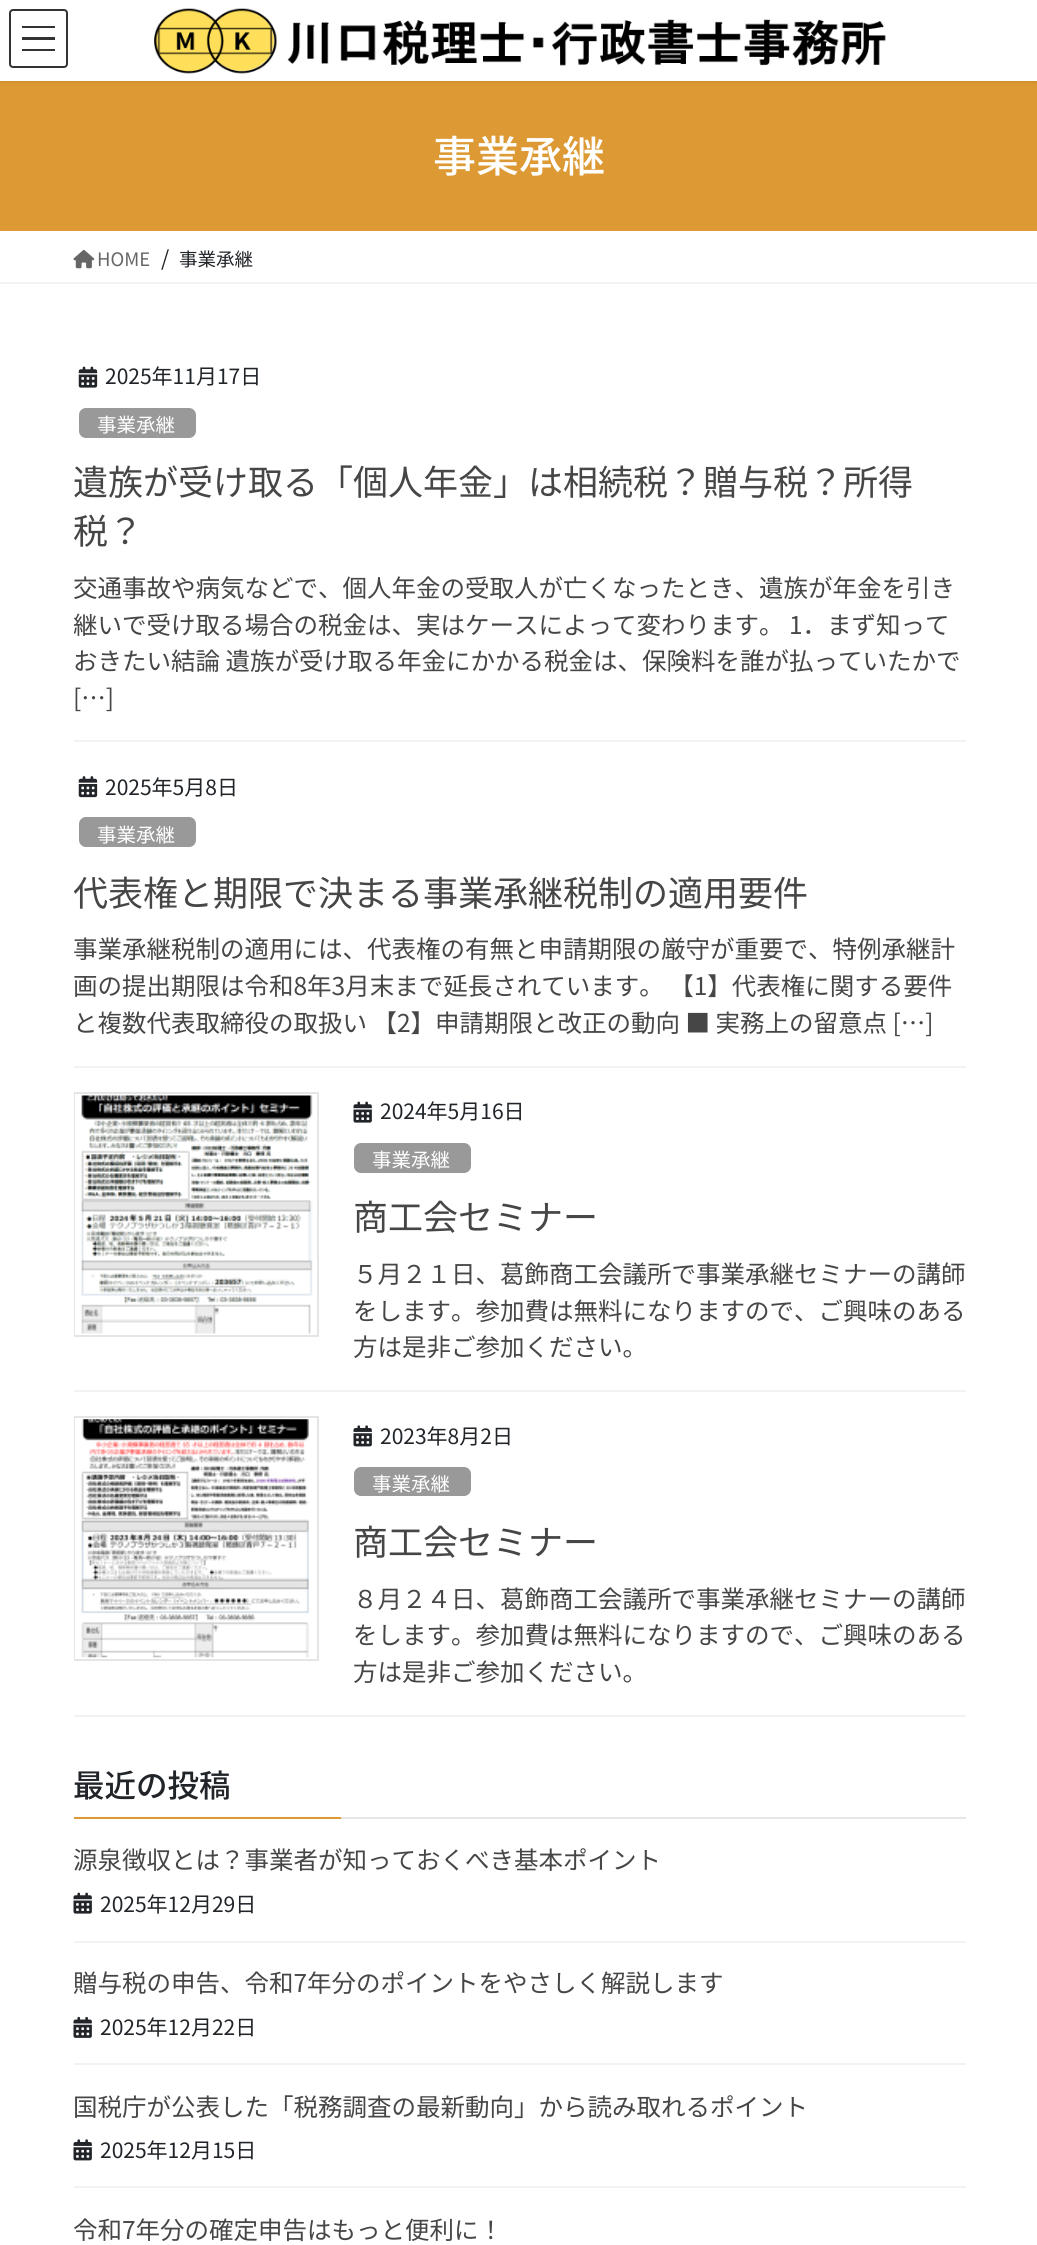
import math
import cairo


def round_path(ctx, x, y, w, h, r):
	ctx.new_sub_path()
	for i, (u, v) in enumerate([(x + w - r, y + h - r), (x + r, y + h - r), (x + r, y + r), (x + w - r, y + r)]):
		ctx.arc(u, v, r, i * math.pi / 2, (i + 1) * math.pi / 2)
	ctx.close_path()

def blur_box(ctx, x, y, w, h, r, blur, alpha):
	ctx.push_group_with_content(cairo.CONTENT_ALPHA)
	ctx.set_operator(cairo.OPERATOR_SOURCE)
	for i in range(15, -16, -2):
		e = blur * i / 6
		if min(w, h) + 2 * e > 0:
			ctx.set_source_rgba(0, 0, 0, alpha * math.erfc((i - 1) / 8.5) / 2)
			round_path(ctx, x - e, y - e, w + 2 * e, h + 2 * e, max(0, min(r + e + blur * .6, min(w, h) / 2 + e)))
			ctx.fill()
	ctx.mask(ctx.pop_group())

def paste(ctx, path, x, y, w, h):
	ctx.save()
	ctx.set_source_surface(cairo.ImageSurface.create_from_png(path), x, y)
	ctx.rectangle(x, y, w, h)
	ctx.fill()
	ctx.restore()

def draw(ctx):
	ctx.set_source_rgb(1, 1, 1)
	ctx.paint()
	ctx.set_source_rgb(0.867, 0.6, 0.2)
	ctx.rectangle(0, 81, 1037, 150)
	ctx.fill()
	ctx.set_source_rgb(0, 0, 0)
	blur_box(ctx, 0, 2, 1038, 80, 0, 2.5, 0.1)
	ctx.set_source_rgb(1, 1, 1)
	ctx.rectangle(0, 0, 1037, 81)
	ctx.fill()
	paste(ctx, 'media/1.png', 154, 8, 732, 66)
	ctx.set_source_rgb(0.2, 0.2, 0.2)
	ctx.rectangle(22, 26, 33, 2)
	ctx.rectangle(22, 37, 33, 3)
	ctx.rectangle(22, 49, 33, 2)
	ctx.fill()
	round_path(ctx, 10, 10, 57, 57, 3)
	ctx.stroke()
	ctx.select_font_face('Noto Sans JP Medium')
	ctx.set_font_size(43)
	ctx.set_source_rgb(1, 1, 1)
	ctx.move_to(433, 172)
	ctx.show_text('事業承継')
	ctx.set_source_rgb(0.949, 0.949, 0.949)
	ctx.rectangle(0, 282, 1037, 2)
	ctx.fill()
	paste(ctx, 'media/2.png', 73, 249, 22, 20)
	ctx.select_font_face('Noto Sans JP')
	ctx.set_font_size(18.5)
	ctx.set_source_rgb(0.4, 0.4, 0.4)
	ctx.move_to(97, 266)
	ctx.show_text('HOME')
	ctx.set_font_size(21)
	ctx.set_source_rgb(0.129, 0.145, 0.161)
	ctx.move_to(161, 266)
	ctx.show_text('/')
	ctx.set_font_size(18.5)
	ctx.move_to(179, 266)
	ctx.show_text('事業承継')
	ctx.set_source_rgb(0.949, 0.949, 0.949)
	ctx.rectangle(74, 740, 892, 2)
	ctx.fill()
	paste(ctx, 'media/3.png', 78, 366, 20, 22)
	ctx.set_font_size(21)
	ctx.set_source_rgb(0.129, 0.145, 0.161)
	ctx.move_to(105, 384)
	ctx.show_text('2025年11月17日')
	ctx.set_source_rgb(0.6, 0.6, 0.6)
	round_path(ctx, 79, 408, 117, 30, 7)
	ctx.fill()
	ctx.set_font_size(19.5)
	ctx.set_source_rgb(1, 1, 1)
	ctx.move_to(97, 432)
	ctx.show_text('事業承継')
	ctx.set_font_size(35)
	ctx.set_source_rgb(0.275, 0.275, 0.275)
	ctx.move_to(73, 495)
	ctx.show_text('遺族が受け取る「個人年金」は相続税？贈与税？所得')
	ctx.move_to(73, 544)
	ctx.show_text('税？')
	ctx.set_font_size(24.5)
	ctx.move_to(73, 597)
	ctx.show_text('交通事故や病気などで、個人年金の受取人が亡くなったとき、遺族が年金を引き')
	ctx.save()
	ctx.rectangle(74, 569, 892, 147)
	ctx.clip()
	ctx.move_to(73, 634)
	ctx.show_text('継いで受け取る場合の税金は、実はケースによって変わります。 1．まず知って')
	ctx.restore()
	ctx.move_to(73, 670)
	ctx.show_text('おきたい結論 遺族が受け取る年金にかかる税金は、保険料を誰が払っていたかで')
	ctx.move_to(73, 707)
	ctx.show_text('[…]')
	ctx.set_source_rgb(0.949, 0.949, 0.949)
	ctx.rectangle(74, 1066, 892, 2)
	ctx.fill()
	paste(ctx, 'media/4.png', 78, 776, 20, 22)
	ctx.set_font_size(21)
	ctx.set_source_rgb(0.129, 0.145, 0.161)
	ctx.move_to(105, 795)
	ctx.show_text('2025年5月8日')
	ctx.set_source_rgb(0.6, 0.6, 0.6)
	round_path(ctx, 79, 817, 117, 30, 7)
	ctx.fill()
	ctx.set_font_size(19.5)
	ctx.set_source_rgb(1, 1, 1)
	ctx.move_to(97, 842)
	ctx.show_text('事業承継')
	ctx.set_font_size(35)
	ctx.set_source_rgb(0.275, 0.275, 0.275)
	ctx.move_to(73, 906)
	ctx.show_text('代表権と期限で決まる事業承継税制の適用要件')
	ctx.set_font_size(24.5)
	for x, y, s in [
		(73, 958, '事業承継税制の適用には、代表権の有無と申請期限の厳守が重要で、特例承継計'),
		(73, 995, '画の提出期限は令和8年3月末まで延長されています。 【1】代表権に関する要件'),
		(73, 1032, 'と複数代表取締役の取扱い 【2】申請期限と改正の動向 ■ 実務上の留意点 […]'),
	]:
		ctx.move_to(x, y)
		ctx.show_text(s)
	ctx.set_source_rgb(0.949, 0.949, 0.949)
	ctx.rectangle(74, 1390, 892, 2)
	ctx.fill()
	ctx.rectangle(75, 1093, 243, 243)
	ctx.set_source_rgb(0.898, 0.898, 0.898)
	ctx.stroke()
	ctx.rectangle(76, 1095, 240, 239)
	ctx.set_source_rgb(1, 1, 1)
	ctx.stroke()
	paste(ctx, 'media/5.png', 81, 1095, 232, 239)
	paste(ctx, 'media/6.png', 353, 1101, 19, 22)
	ctx.set_font_size(21)
	ctx.set_source_rgb(0.129, 0.145, 0.161)
	ctx.move_to(380, 1119)
	ctx.show_text('2024年5月16日')
	ctx.set_source_rgb(0.6, 0.6, 0.6)
	round_path(ctx, 354, 1143, 117, 30, 7)
	ctx.fill()
	ctx.set_font_size(19.5)
	ctx.set_source_rgb(1, 1, 1)
	ctx.move_to(372, 1167)
	ctx.show_text('事業承継')
	ctx.set_font_size(35)
	ctx.set_source_rgb(0.275, 0.275, 0.275)
	ctx.move_to(353, 1230)
	ctx.show_text('商工会セミナー')
	ctx.set_font_size(24.5)
	for x, y, s in [
		(353, 1283, '５月２１日、葛飾商工会議所で事業承継セミナーの講師'),
		(353, 1320, 'をします。参加費は無料になりますので、ご興味のある'),
		(353, 1356, '方は是非ご参加ください。'),
	]:
		ctx.move_to(x, y)
		ctx.show_text(s)
	ctx.set_source_rgb(0.949, 0.949, 0.949)
	ctx.rectangle(74, 1715, 892, 2)
	ctx.fill()
	ctx.rectangle(75, 1417, 243, 243)
	ctx.set_source_rgb(0.898, 0.898, 0.898)
	ctx.stroke()
	ctx.rectangle(76, 1419, 240, 239)
	ctx.set_source_rgb(1, 1, 1)
	ctx.stroke()
	paste(ctx, 'media/7.png', 81, 1419, 228, 239)
	paste(ctx, 'media/8.png', 353, 1425, 19, 22)
	ctx.set_font_size(21)
	ctx.set_source_rgb(0.129, 0.145, 0.161)
	ctx.move_to(380, 1444)
	ctx.show_text('2023年8月2日')
	ctx.set_source_rgb(0.6, 0.6, 0.6)
	round_path(ctx, 354, 1467, 117, 29, 7)
	ctx.fill()
	ctx.set_font_size(19.5)
	ctx.set_source_rgb(1, 1, 1)
	ctx.move_to(372, 1491)
	ctx.show_text('事業承継')
	ctx.set_font_size(35)
	ctx.set_source_rgb(0.275, 0.275, 0.275)
	ctx.move_to(353, 1555)
	ctx.show_text('商工会セミナー')
	ctx.set_font_size(24.5)
	for x, y, s in [
		(353, 1608, '８月２４日、葛飾商工会議所で事業承継セミナーの講師'),
		(353, 1644, 'をします。参加費は無料になりますので、ご興味のある'),
		(353, 1681, '方は是非ご参加ください。'),
	]:
		ctx.move_to(x, y)
		ctx.show_text(s)
	ctx.set_source_rgb(0.902, 0.902, 0.902)
	ctx.rectangle(341, 1817, 625, 2)
	ctx.fill()
	ctx.select_font_face('Noto Sans JP Medium')
	ctx.set_font_size(31.5)
	ctx.set_source_rgb(0.129, 0.145, 0.161)
	ctx.move_to(73, 1797)
	ctx.show_text('最近の投稿')
	ctx.set_source_rgb(0.867, 0.6, 0.2)
	ctx.rectangle(74, 1817, 267, 2)
	ctx.fill()
	ctx.set_source_rgb(0.949, 0.949, 0.949)
	ctx.rectangle(74, 1941, 892, 2)
	ctx.fill()
	ctx.select_font_face('Noto Sans JP')
	ctx.set_font_size(24.5)
	ctx.set_source_rgb(0.275, 0.275, 0.275)
	ctx.move_to(73, 1869)
	ctx.show_text('源泉徴収とは？事業者が知っておくべき基本ポイント')
	paste(ctx, 'media/6.png', 73, 1892, 19, 22)
	ctx.set_font_size(21)
	ctx.set_source_rgb(0.129, 0.145, 0.161)
	ctx.move_to(100, 1912)
	ctx.show_text('2025年12月29日')
	ctx.set_source_rgb(0.949, 0.949, 0.949)
	ctx.rectangle(74, 2063, 892, 2)
	ctx.fill()
	ctx.set_font_size(24.5)
	ctx.set_source_rgb(0.275, 0.275, 0.275)
	ctx.move_to(73, 1992)
	ctx.show_text('贈与税の申告、令和7年分のポイントをやさしく解説します')
	paste(ctx, 'media/9.png', 73, 2016, 19, 22)
	ctx.set_font_size(21)
	ctx.set_source_rgb(0.129, 0.145, 0.161)
	ctx.move_to(100, 2035)
	ctx.show_text('2025年12月22日')
	ctx.set_source_rgb(0.949, 0.949, 0.949)
	ctx.rectangle(74, 2186, 892, 2)
	ctx.fill()
	ctx.set_font_size(24.5)
	ctx.set_source_rgb(0.275, 0.275, 0.275)
	ctx.move_to(73, 2116)
	ctx.show_text('国税庁が公表した「税務調査の最新動向」から読み取れるポイント')
	paste(ctx, 'media/8.png', 73, 2139, 19, 22)
	ctx.set_font_size(21)
	ctx.set_source_rgb(0.129, 0.145, 0.161)
	ctx.move_to(100, 2158)
	ctx.show_text('2025年12月15日')
	ctx.set_font_size(24.5)
	ctx.set_source_rgb(0.275, 0.275, 0.275)
	ctx.move_to(73, 2239)
	ctx.show_text('令和7年分の確定申告はもっと便利に！')


surface = cairo.ImageSurface(cairo.FORMAT_RGB24, 1037, 2245)
ctx = cairo.Context(surface)
options = cairo.FontOptions()
options.set_hint_metrics(cairo.HINT_METRICS_OFF)
options.set_hint_style(cairo.HINT_STYLE_NONE)
ctx.set_font_options(options)
ctx.set_miter_limit(4)
draw(ctx)
surface.write_to_png('image.png')
